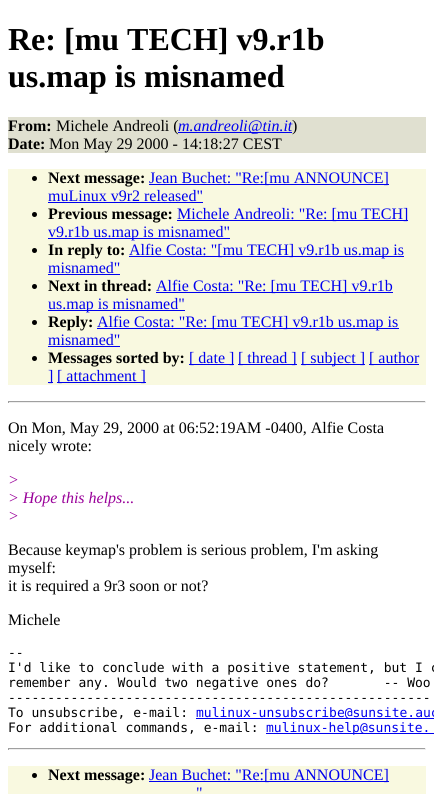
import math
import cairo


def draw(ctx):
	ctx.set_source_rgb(1, 1, 1)
	ctx.paint()
	ctx.select_font_face('Liberation Serif', cairo.FONT_SLANT_NORMAL, cairo.FONT_WEIGHT_BOLD)
	ctx.set_font_size(32)
	ctx.set_source_rgb(0, 0, 0)
	ctx.move_to(8, 50)
	ctx.show_text('Re: [mu TECH] v9.r1b')
	ctx.move_to(8, 87)
	ctx.show_text('us.map is misnamed')
	ctx.set_source_rgb(0.878, 0.878, 0.816)
	ctx.rectangle(8, 117, 418, 36)
	ctx.fill()
	ctx.set_font_size(16)
	ctx.set_source_rgb(0, 0, 0)
	ctx.move_to(8, 131)
	ctx.show_text('From:')
	ctx.select_font_face('Liberation Serif')
	ctx.move_to(56, 131)
	ctx.show_text('Michele Andreoli (')
	ctx.set_source_rgb(0, 0, 0.933)
	ctx.rectangle(178, 132, 114, 1)
	ctx.fill()
	ctx.select_font_face('Liberation Serif', cairo.FONT_SLANT_ITALIC)
	ctx.move_to(178, 131)
	ctx.show_text('m.andreoli@tin.it')
	ctx.select_font_face('Liberation Serif')
	ctx.set_source_rgb(0, 0, 0)
	ctx.move_to(292, 131)
	ctx.show_text(')')
	ctx.select_font_face('Liberation Serif', cairo.FONT_SLANT_NORMAL, cairo.FONT_WEIGHT_BOLD)
	ctx.move_to(8, 149)
	ctx.show_text('Date:')
	ctx.select_font_face('Liberation Serif')
	ctx.move_to(49, 149)
	ctx.show_text('Mon May 29 2000 - 14:18:27 CEST')
	ctx.set_source_rgb(0.973, 0.973, 0.878)
	ctx.rectangle(8, 169, 418, 216)
	ctx.fill()
	ctx.set_source_rgb(0, 0, 0)
	ctx.arc(34.5, 178.5, 2.5, 0, 2 * math.pi)
	ctx.fill()
	ctx.select_font_face('Liberation Serif', cairo.FONT_SLANT_NORMAL, cairo.FONT_WEIGHT_BOLD)
	ctx.move_to(48, 183)
	ctx.show_text('Next message:')
	ctx.set_source_rgb(0, 0, 0.933)
	ctx.rectangle(149, 184, 240, 1)
	ctx.fill()
	ctx.select_font_face('Liberation Serif')
	ctx.move_to(149, 183)
	ctx.show_text('Jean Buchet: "Re:[mu ANNOUNCE]')
	ctx.move_to(48, 201)
	ctx.show_text('muLinux v9r2 released"')
	ctx.rectangle(48, 202, 155, 1)
	ctx.fill()
	ctx.set_source_rgb(0, 0, 0)
	ctx.arc(34.5, 214.5, 2.5, 0, 2 * math.pi)
	ctx.fill()
	ctx.select_font_face('Liberation Serif', cairo.FONT_SLANT_NORMAL, cairo.FONT_WEIGHT_BOLD)
	ctx.move_to(48, 219)
	ctx.show_text('Previous message:')
	ctx.set_source_rgb(0, 0, 0.933)
	ctx.rectangle(177, 220, 231, 1)
	ctx.fill()
	ctx.select_font_face('Liberation Serif')
	ctx.move_to(177, 219)
	ctx.show_text('Michele Andreoli: "Re: [mu TECH]')
	ctx.rectangle(48, 238, 182, 1)
	ctx.fill()
	ctx.move_to(48, 237)
	ctx.show_text('v9.r1b us.map is misnamed"')
	ctx.set_source_rgb(0, 0, 0)
	ctx.new_path()
	ctx.arc(34.5, 250.5, 2.5, 0, 2 * math.pi)
	ctx.fill()
	ctx.select_font_face('Liberation Serif', cairo.FONT_SLANT_NORMAL, cairo.FONT_WEIGHT_BOLD)
	ctx.move_to(48, 255)
	ctx.show_text('In reply to:')
	ctx.set_source_rgb(0, 0, 0.933)
	ctx.rectangle(129, 256, 275, 1)
	ctx.fill()
	ctx.select_font_face('Liberation Serif')
	ctx.move_to(129, 255)
	ctx.show_text('Alfie Costa: "[mu TECH] v9.r1b us.map is')
	ctx.move_to(48, 273)
	ctx.show_text('misnamed"')
	ctx.rectangle(48, 274, 72, 1)
	ctx.fill()
	ctx.set_source_rgb(0, 0, 0)
	ctx.arc(34.5, 286.5, 2.5, 0, 2 * math.pi)
	ctx.fill()
	ctx.select_font_face('Liberation Serif', cairo.FONT_SLANT_NORMAL, cairo.FONT_WEIGHT_BOLD)
	ctx.move_to(48, 291)
	ctx.show_text('Next in thread:')
	ctx.set_source_rgb(0, 0, 0.933)
	ctx.rectangle(156, 292, 237, 1)
	ctx.fill()
	ctx.select_font_face('Liberation Serif')
	ctx.move_to(156, 291)
	ctx.show_text('Alfie Costa: "Re: [mu TECH] v9.r1b')
	ctx.rectangle(48, 310, 137, 1)
	ctx.fill()
	ctx.move_to(48, 309)
	ctx.show_text('us.map is misnamed"')
	ctx.set_source_rgb(0, 0, 0)
	ctx.new_path()
	ctx.arc(34.5, 322.5, 2.5, 0, 2 * math.pi)
	ctx.fill()
	ctx.select_font_face('Liberation Serif', cairo.FONT_SLANT_NORMAL, cairo.FONT_WEIGHT_BOLD)
	ctx.move_to(48, 327)
	ctx.show_text('Reply:')
	ctx.set_source_rgb(0, 0, 0.933)
	ctx.rectangle(97, 328, 302, 1)
	ctx.fill()
	ctx.select_font_face('Liberation Serif')
	ctx.move_to(97, 327)
	ctx.show_text('Alfie Costa: "Re: [mu TECH] v9.r1b us.map is')
	ctx.move_to(48, 345)
	ctx.show_text('misnamed"')
	ctx.rectangle(48, 346, 72, 1)
	ctx.fill()
	ctx.set_source_rgb(0, 0, 0)
	ctx.arc(34.5, 358.5, 2.5, 0, 2 * math.pi)
	ctx.fill()
	ctx.select_font_face('Liberation Serif', cairo.FONT_SLANT_NORMAL, cairo.FONT_WEIGHT_BOLD)
	ctx.move_to(48, 363)
	ctx.show_text('Messages sorted by:')
	ctx.set_source_rgb(0, 0, 0.933)
	ctx.rectangle(189, 364, 45, 1)
	ctx.fill()
	ctx.select_font_face('Liberation Serif')
	ctx.move_to(189, 363)
	ctx.show_text('[ date ]')
	ctx.rectangle(238, 364, 59, 1)
	ctx.fill()
	ctx.move_to(238, 363)
	ctx.show_text('[ thread ]')
	ctx.rectangle(301, 364, 64, 1)
	ctx.fill()
	ctx.move_to(301, 363)
	ctx.show_text('[ subject ]')
	ctx.rectangle(369, 364, 50, 1)
	ctx.fill()
	ctx.move_to(369, 363)
	ctx.show_text('[ author')
	ctx.rectangle(48, 382, 5, 1)
	ctx.fill()
	ctx.move_to(48, 381)
	ctx.show_text(']')
	ctx.rectangle(57, 382, 89, 1)
	ctx.fill()
	ctx.move_to(57, 381)
	ctx.show_text('[ attachment ]')
	ctx.set_source_rgb(0.624, 0.624, 0.624)
	ctx.rectangle(8, 401, 418, 1)
	ctx.fill()
	ctx.set_source_rgb(0.933, 0.933, 0.933)
	ctx.rectangle(425, 401, 1, 2)
	ctx.rectangle(8, 402, 418, 1)
	ctx.fill()
	ctx.set_source_rgb(0.624, 0.624, 0.624)
	ctx.rectangle(8, 401, 1, 2)
	ctx.fill()
	ctx.set_source_rgb(0, 0, 0)
	ctx.move_to(8, 433)
	ctx.show_text('On Mon, May 29, 2000 at 06:52:19AM -0400, Alfie Costa')
	ctx.move_to(8, 451)
	ctx.show_text('nicely wrote:')
	ctx.select_font_face('Liberation Serif', cairo.FONT_SLANT_ITALIC)
	ctx.set_source_rgb(0.6, 0, 0.6)
	for x, y, s in [
		(8, 485, '>'),
		(8, 503, '> Hope this helps...'),
		(8, 521, '>'),
	]:
		ctx.move_to(x, y)
		ctx.show_text(s)
	ctx.select_font_face('Liberation Serif')
	ctx.set_source_rgb(0, 0, 0)
	for x, y, s in [
		(8, 555, 'Because keymap\'s problem is serious problem, I\'m asking'),
		(8, 573, 'myself:'),
		(8, 591, 'it is required a 9r3 soon or not?'),
		(8, 625, 'Michele'),
	]:
		ctx.move_to(x, y)
		ctx.show_text(s)
	ctx.select_font_face('DejaVu Sans Mono')
	ctx.set_font_size(13)
	for x, y, s in [
		(8, 657, '--'),
		(8, 672, 'I\'d like to conclude with a positive statement, but I c'),
		(8, 687, 'remember any. Would two negative ones do?       -- Woo'),
		(8, 702, '------------------------------------------------------'),
		(8, 717, 'To unsubscribe, e-mail:'),
	]:
		ctx.move_to(x, y)
		ctx.show_text(s)
	ctx.set_source_rgb(0, 0, 0.933)
	ctx.rectangle(196, 718, 238, 1)
	ctx.fill()
	ctx.move_to(196, 717)
	ctx.show_text('mulinux-unsubscribe@sunsite.auc')
	ctx.set_source_rgb(0, 0, 0)
	ctx.move_to(8, 732)
	ctx.show_text('For additional commands, e-mail:')
	ctx.set_source_rgb(0, 0, 0.933)
	ctx.rectangle(266, 733, 168, 1)
	ctx.fill()
	ctx.move_to(266, 732)
	ctx.show_text('mulinux-help@sunsite.')
	ctx.set_source_rgb(0.624, 0.624, 0.624)
	ctx.rectangle(8, 748, 418, 1)
	ctx.fill()
	ctx.set_source_rgb(0.933, 0.933, 0.933)
	ctx.rectangle(425, 748, 1, 2)
	ctx.rectangle(8, 749, 418, 1)
	ctx.fill()
	ctx.set_source_rgb(0.624, 0.624, 0.624)
	ctx.rectangle(8, 748, 1, 2)
	ctx.fill()
	ctx.set_source_rgb(0.973, 0.973, 0.878)
	ctx.rectangle(8, 766, 418, 28)
	ctx.fill()
	ctx.set_source_rgb(0, 0, 0)
	ctx.arc(34.5, 775.5, 2.5, 0, 2 * math.pi)
	ctx.fill()
	ctx.select_font_face('Liberation Serif', cairo.FONT_SLANT_NORMAL, cairo.FONT_WEIGHT_BOLD)
	ctx.set_font_size(16)
	ctx.move_to(48, 780)
	ctx.show_text('Next message:')
	ctx.set_source_rgb(0, 0, 0.933)
	ctx.rectangle(149, 781, 240, 1)
	ctx.fill()
	ctx.select_font_face('Liberation Serif')
	ctx.move_to(149, 780)
	ctx.show_text('Jean Buchet: "Re:[mu ANNOUNCE]')
	ctx.move_to(196, 798)
	ctx.show_text('"')


surface = cairo.ImageSurface(cairo.FORMAT_RGB24, 434, 794)
ctx = cairo.Context(surface)
options = cairo.FontOptions()
options.set_hint_metrics(cairo.HINT_METRICS_OFF)
options.set_hint_style(cairo.HINT_STYLE_NONE)
ctx.set_font_options(options)
ctx.set_miter_limit(4)
draw(ctx)
surface.write_to_png('image.png')
